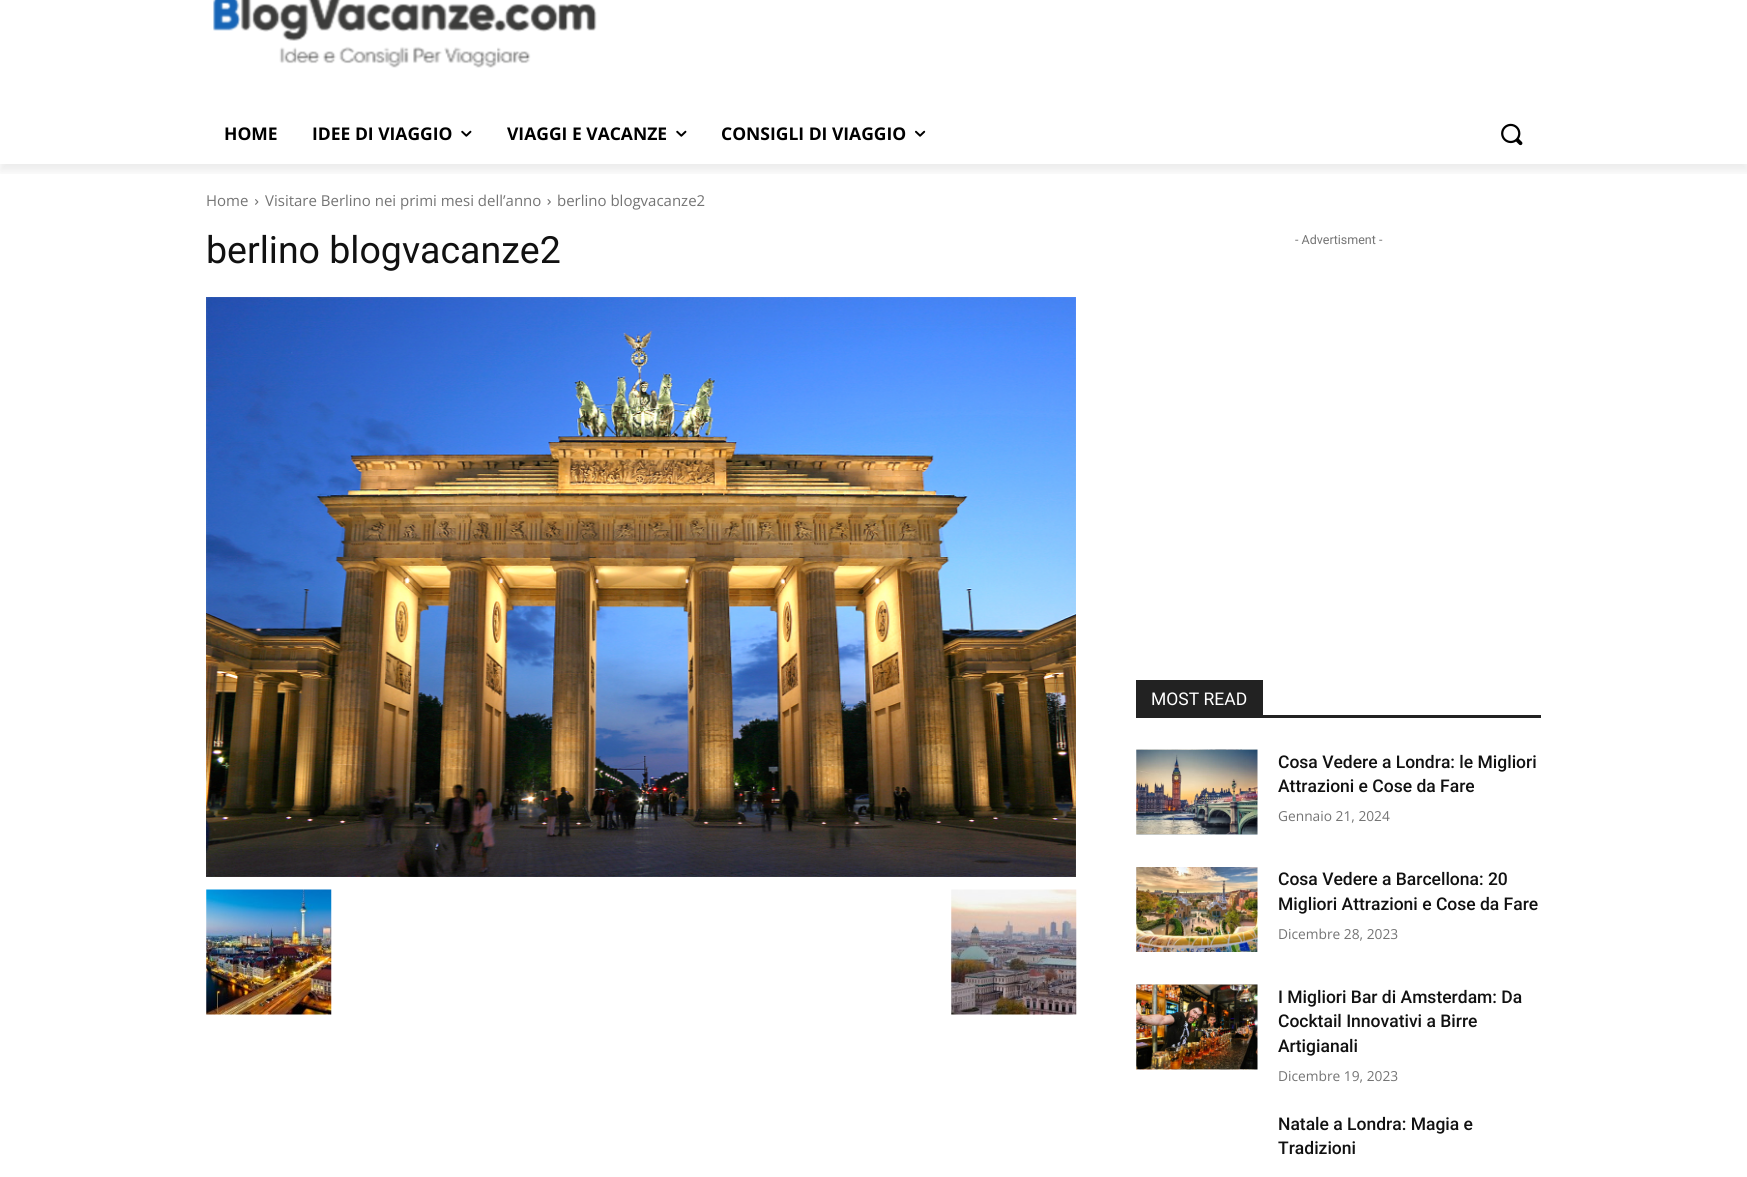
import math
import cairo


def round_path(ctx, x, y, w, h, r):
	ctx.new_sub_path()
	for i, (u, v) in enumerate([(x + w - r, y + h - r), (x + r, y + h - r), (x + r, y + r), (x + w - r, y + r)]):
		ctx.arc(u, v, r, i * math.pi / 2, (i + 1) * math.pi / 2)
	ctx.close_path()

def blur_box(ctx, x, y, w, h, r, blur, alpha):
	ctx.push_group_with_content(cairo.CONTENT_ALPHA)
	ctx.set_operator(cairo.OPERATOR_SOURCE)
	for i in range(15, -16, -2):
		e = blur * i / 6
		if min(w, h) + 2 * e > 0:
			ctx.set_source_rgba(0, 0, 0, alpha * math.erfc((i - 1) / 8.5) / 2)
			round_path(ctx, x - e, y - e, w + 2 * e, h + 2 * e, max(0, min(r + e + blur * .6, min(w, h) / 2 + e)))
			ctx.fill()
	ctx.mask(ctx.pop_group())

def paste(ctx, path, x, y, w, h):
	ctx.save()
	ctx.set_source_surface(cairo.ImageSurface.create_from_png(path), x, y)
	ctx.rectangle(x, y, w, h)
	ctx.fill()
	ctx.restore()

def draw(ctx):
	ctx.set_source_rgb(1, 1, 1)
	ctx.paint()
	paste(ctx, 'media/1.png', 213, 0, 384, 68)
	ctx.save()
	ctx.rectangle(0, 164, 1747, 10)
	ctx.clip()
	ctx.set_source_rgb(0, 0, 0)
	blur_box(ctx, 0, -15, 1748, 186, 0, 5, 0.08)
	ctx.restore()
	ctx.select_font_face('Open Sans', cairo.FONT_SLANT_NORMAL, cairo.FONT_WEIGHT_BOLD)
	ctx.set_font_size(17.5)
	ctx.set_source_rgb(0, 0, 0)
	ctx.move_to(224, 140)
	ctx.show_text('HOME')
	ctx.move_to(312, 140)
	ctx.show_text('IDEE DI VIAGGIO')
	paste(ctx, 'media/2.png', 461, 130, 11, 7)
	ctx.move_to(507, 140)
	ctx.show_text('VIAGGI E VACANZE')
	paste(ctx, 'media/2.png', 676, 130, 11, 7)
	ctx.move_to(721, 140)
	ctx.show_text('CONSIGLI DI VIAGGIO')
	paste(ctx, 'media/3.png', 915, 130, 11, 7)
	paste(ctx, 'media/4.png', 1501, 123, 22, 23)
	ctx.select_font_face('Open Sans')
	ctx.set_font_size(15)
	ctx.set_source_rgb(0.455, 0.455, 0.455)
	ctx.move_to(206, 206)
	ctx.show_text('Home')
	paste(ctx, 'media/5.png', 255, 199, 4, 6)
	ctx.move_to(265, 206)
	ctx.show_text('Visitare Berlino nei primi mesi dell’anno')
	paste(ctx, 'media/6.png', 547, 199, 4, 6)
	ctx.move_to(557, 206)
	ctx.show_text('berlino blogvacanze2')
	ctx.select_font_face('Roboto')
	ctx.set_font_size(37.5)
	ctx.set_source_rgb(0.067, 0.067, 0.067)
	ctx.move_to(206, 263)
	ctx.show_text('berlino blogvacanze2')
	paste(ctx, 'media/7.png', 206, 297, 870, 580)
	paste(ctx, 'media/8.png', 206, 889, 126, 126)
	paste(ctx, 'media/9.png', 951, 889, 126, 126)
	ctx.set_font_size(12.5)
	ctx.set_source_rgb(0.455, 0.455, 0.455)
	ctx.move_to(1295, 244)
	ctx.show_text('- Advertisment -')
	ctx.set_source_rgb(0.133, 0.133, 0.133)
	ctx.rectangle(1136, 715, 405, 3)
	ctx.fill()
	ctx.rectangle(1136, 680, 127, 35)
	ctx.fill()
	ctx.set_font_size(17.5)
	ctx.set_source_rgb(1, 1, 1)
	ctx.move_to(1151, 705)
	ctx.show_text('MOST READ')
	paste(ctx, 'media/10.png', 1136, 749, 122, 86)
	ctx.select_font_face('Roboto Medium')
	ctx.set_source_rgb(0.067, 0.067, 0.067)
	ctx.move_to(1278, 768)
	ctx.show_text('Cosa Vedere a Londra: le Migliori')
	ctx.move_to(1278, 792)
	ctx.show_text('Attrazioni e Cose da Fare')
	ctx.select_font_face('Open Sans')
	ctx.set_font_size(13.75)
	ctx.set_source_rgb(0.455, 0.455, 0.455)
	ctx.move_to(1278, 821)
	ctx.show_text('Gennaio 21, 2024')
	paste(ctx, 'media/11.png', 1136, 867, 122, 85)
	ctx.select_font_face('Roboto Medium')
	ctx.set_font_size(17.5)
	ctx.set_source_rgb(0.067, 0.067, 0.067)
	ctx.move_to(1278, 885)
	ctx.show_text('Cosa Vedere a Barcellona: 20')
	ctx.move_to(1278, 910)
	ctx.show_text('Migliori Attrazioni e Cose da Fare')
	ctx.select_font_face('Open Sans')
	ctx.set_font_size(13.75)
	ctx.set_source_rgb(0.455, 0.455, 0.455)
	ctx.move_to(1278, 939)
	ctx.show_text('Dicembre 28, 2023')
	paste(ctx, 'media/12.png', 1136, 984, 122, 86)
	ctx.select_font_face('Roboto Medium')
	ctx.set_font_size(17.5)
	ctx.set_source_rgb(0.067, 0.067, 0.067)
	for x, y, s in [
		(1278, 1003, 'I Migliori Bar di Amsterdam: Da'),
		(1278, 1027, 'Cocktail Innovativi a Birre'),
		(1278, 1052, 'Artigianali'),
	]:
		ctx.move_to(x, y)
		ctx.show_text(s)
	ctx.select_font_face('Open Sans')
	ctx.set_font_size(13.75)
	ctx.set_source_rgb(0.455, 0.455, 0.455)
	ctx.move_to(1278, 1081)
	ctx.show_text('Dicembre 19, 2023')
	ctx.select_font_face('Roboto Medium')
	ctx.set_font_size(17.5)
	ctx.set_source_rgb(0.067, 0.067, 0.067)
	ctx.move_to(1278, 1130)
	ctx.show_text('Natale a Londra: Magia e')
	ctx.move_to(1278, 1154)
	ctx.show_text('Tradizioni')


surface = cairo.ImageSurface(cairo.FORMAT_RGB24, 1747, 1177)
ctx = cairo.Context(surface)
options = cairo.FontOptions()
options.set_hint_metrics(cairo.HINT_METRICS_OFF)
options.set_hint_style(cairo.HINT_STYLE_NONE)
ctx.set_font_options(options)
ctx.set_miter_limit(4)
draw(ctx)
surface.write_to_png('image.png')
